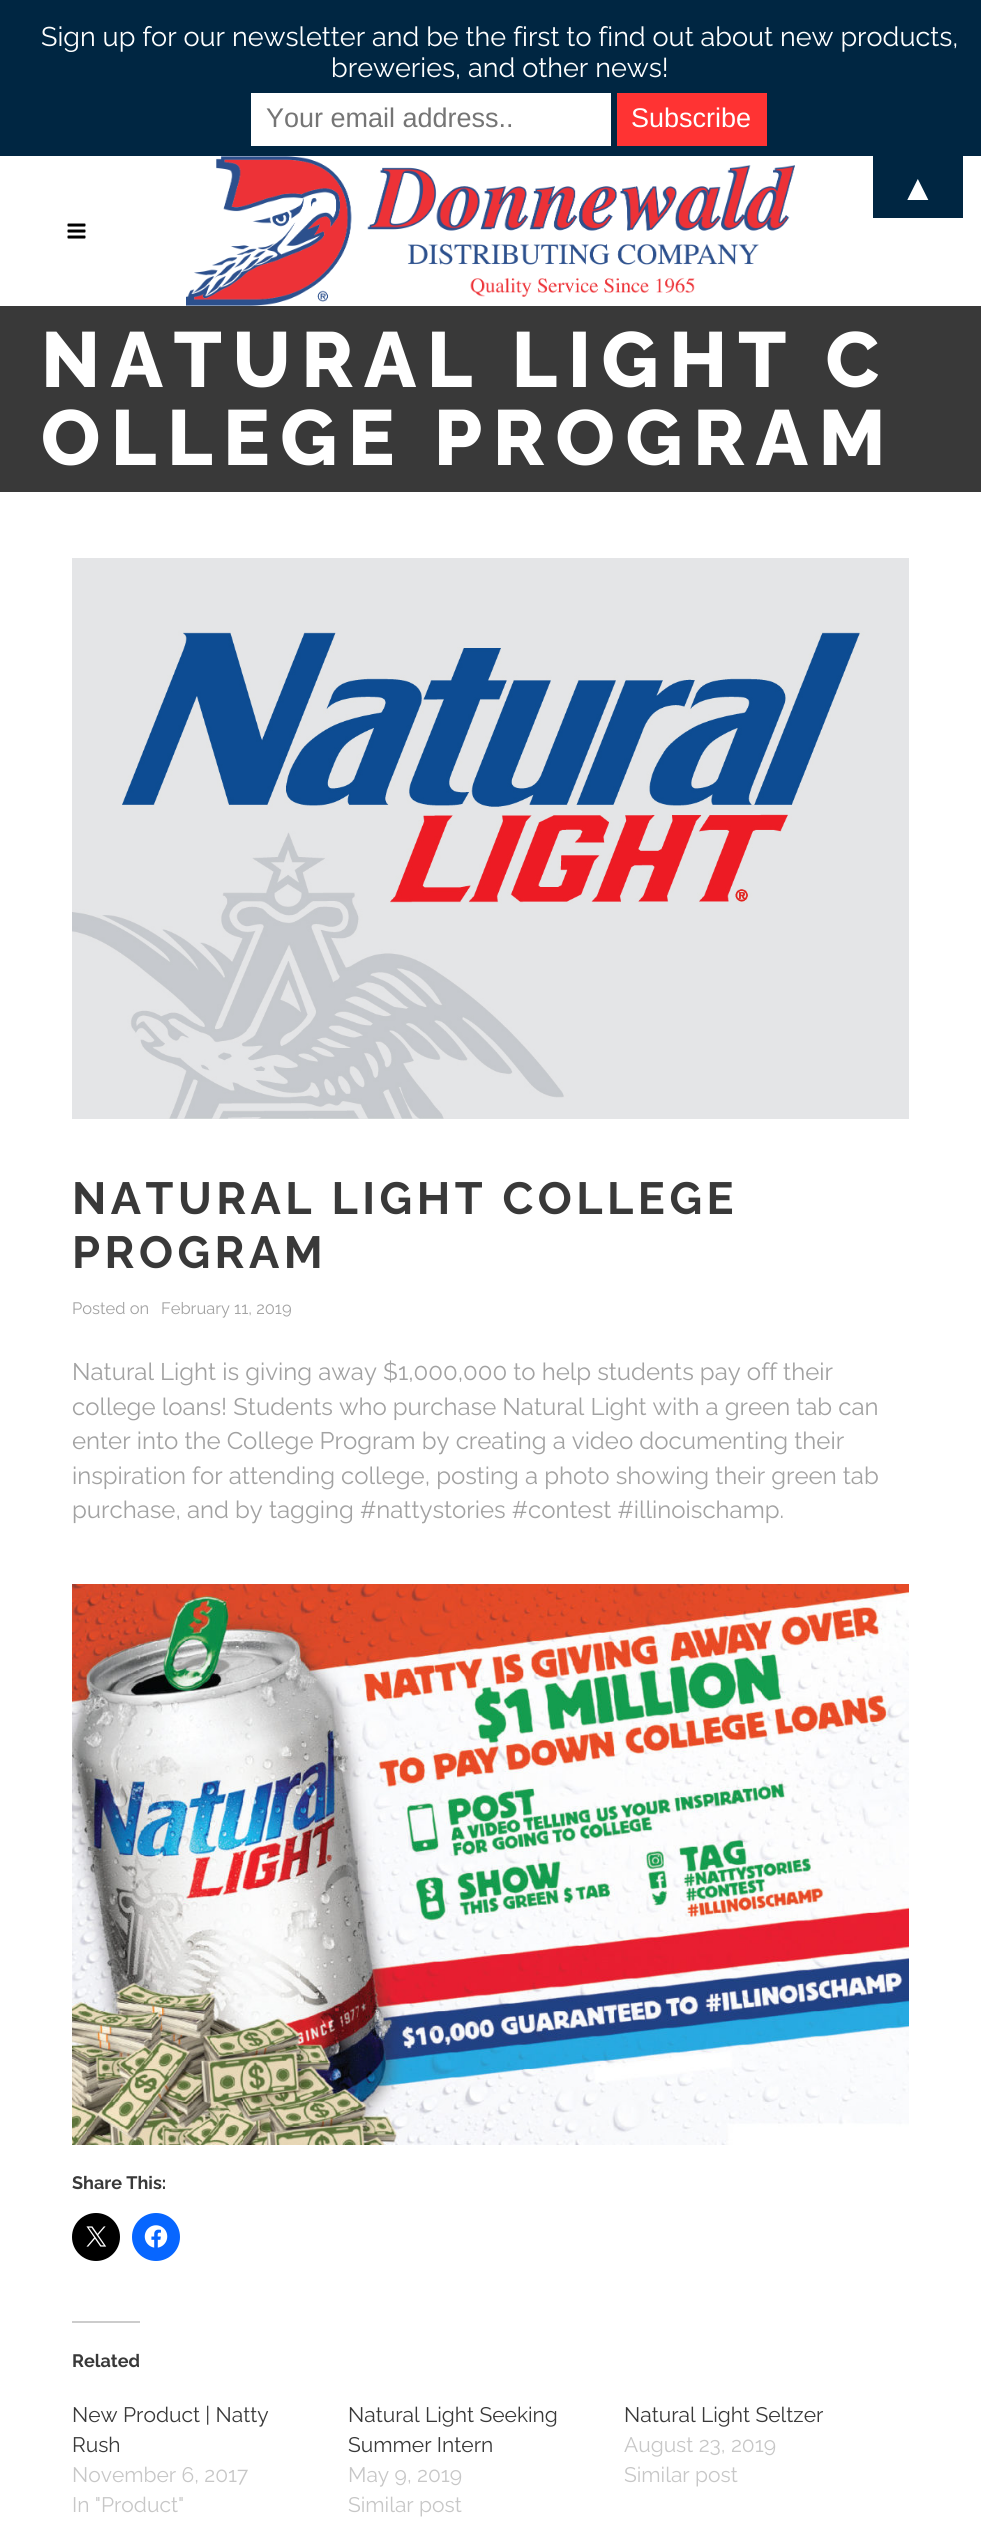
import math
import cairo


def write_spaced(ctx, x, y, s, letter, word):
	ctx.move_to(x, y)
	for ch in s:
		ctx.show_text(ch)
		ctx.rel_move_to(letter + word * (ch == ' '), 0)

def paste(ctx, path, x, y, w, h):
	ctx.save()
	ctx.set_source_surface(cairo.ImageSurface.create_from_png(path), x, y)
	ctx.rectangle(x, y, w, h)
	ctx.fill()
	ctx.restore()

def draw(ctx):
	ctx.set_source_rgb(1, 1, 1)
	ctx.paint()
	ctx.set_source_rgb(0, 0.149, 0.259)
	ctx.rectangle(0, 0, 981, 156)
	ctx.fill()
	ctx.select_font_face('Raleway')
	ctx.set_font_size(27)
	ctx.set_source_rgb(1, 1, 1)
	ctx.move_to(41, 46)
	ctx.show_text('Sign up for our newsletter and be the first to find out about new products,')
	ctx.move_to(331, 77)
	ctx.show_text('breweries, and other news!')
	ctx.rectangle(251, 93, 360, 53)
	ctx.fill()
	ctx.select_font_face('Liberation Sans')
	ctx.set_source_rgb(0.459, 0.459, 0.459)
	ctx.move_to(266, 127)
	ctx.show_text('Your email address..')
	ctx.set_source_rgb(1, 0.2, 0.2)
	ctx.rectangle(617, 93, 150, 53)
	ctx.fill()
	ctx.set_source_rgb(1, 1, 1)
	ctx.move_to(631, 127)
	ctx.show_text('Subscribe')
	ctx.set_source_rgb(0, 0.149, 0.259)
	ctx.rectangle(873, 156, 90, 62)
	ctx.fill()
	ctx.set_font_size(36)
	ctx.set_source_rgb(1, 1, 1)
	ctx.move_to(900, 200)
	ctx.show_text('▲')
	paste(ctx, 'media/1.png', 67, 223, 19, 16)
	paste(ctx, 'media/2.png', 186, 156, 609, 150)
	ctx.set_source_rgb(0.224, 0.224, 0.224)
	ctx.rectangle(0, 306, 981, 186)
	ctx.fill()
	ctx.select_font_face('Raleway ExtraBold')
	ctx.set_font_size(78)
	ctx.set_source_rgb(1, 1, 1)
	write_spaced(ctx, 41, 387, 'NATURAL LIGHT C', 10.5, 0)
	write_spaced(ctx, 41, 465, 'OLLEGE PROGRAM', 10.5, 0)
	paste(ctx, 'media/3.png', 72, 558, 837, 561)
	ctx.select_font_face('Raleway', cairo.FONT_SLANT_NORMAL, cairo.FONT_WEIGHT_BOLD)
	ctx.set_font_size(45)
	ctx.set_source_rgb(0.224, 0.224, 0.224)
	write_spaced(ctx, 72, 1214, 'NATURAL LIGHT COLLEGE', 4.5, 0)
	write_spaced(ctx, 72, 1268, 'PROGRAM', 4.5, 0)
	ctx.select_font_face('Raleway')
	ctx.set_font_size(16.5)
	ctx.set_source_rgb(0.635, 0.635, 0.635)
	ctx.move_to(72, 1314)
	ctx.show_text('Posted on')
	ctx.move_to(161, 1314)
	ctx.show_text('February 11, 2019')
	ctx.set_font_size(24)
	for x, y, s in [
		(72, 1380, 'Natural Light is giving away $1,000,000 to help students pay off their'),
		(72, 1415, 'college loans! Students who purchase Natural Light with a green tab can'),
		(72, 1449, 'enter into the College Program by creating a video documenting their'),
		(72, 1484, 'inspiration for attending college, posting a photo showing their green tab'),
		(72, 1518, 'purchase, and by tagging #nattystories #contest #illinoischamp.'),
	]:
		ctx.move_to(x, y)
		ctx.show_text(s)
	paste(ctx, 'media/4.png', 72, 1584, 837, 561)
	ctx.select_font_face('Raleway', cairo.FONT_SLANT_NORMAL, cairo.FONT_WEIGHT_BOLD)
	ctx.set_font_size(18)
	ctx.set_source_rgb(0.224, 0.224, 0.224)
	ctx.move_to(72, 2189)
	ctx.show_text('Share This:')
	ctx.set_source_rgb(0, 0, 0)
	ctx.new_path()
	ctx.arc(96, 2237, 24, 0, 2 * math.pi)
	ctx.fill()
	paste(ctx, 'media/5.png', 86, 2226, 21, 21)
	ctx.set_source_rgb(0.031, 0.4, 1)
	ctx.arc(156, 2237, 24, 0, 2 * math.pi)
	ctx.fill()
	paste(ctx, 'media/6.png', 144, 2225, 24, 23)
	ctx.set_source_rgb(0.8, 0.8, 0.8)
	ctx.rectangle(72, 2321, 68, 2)
	ctx.fill()
	ctx.set_source_rgb(0.224, 0.224, 0.224)
	ctx.move_to(72, 2367)
	ctx.show_text('Related')
	ctx.select_font_face('Raleway')
	ctx.set_font_size(21)
	ctx.move_to(72, 2422)
	ctx.show_text('New Product | Natty')
	ctx.move_to(72, 2452)
	ctx.show_text('Rush')
	ctx.set_source_rgb(0.78, 0.78, 0.78)
	ctx.move_to(72, 2482)
	ctx.show_text('November 6, 2017')
	ctx.move_to(72, 2512)
	ctx.show_text('In "Product"')
	ctx.set_source_rgb(0.224, 0.224, 0.224)
	ctx.move_to(348, 2422)
	ctx.show_text('Natural Light Seeking')
	ctx.move_to(348, 2452)
	ctx.show_text('Summer Intern')
	ctx.set_source_rgb(0.78, 0.78, 0.78)
	ctx.move_to(348, 2482)
	ctx.show_text('May 9, 2019')
	ctx.move_to(348, 2512)
	ctx.show_text('Similar post')
	ctx.set_source_rgb(0.224, 0.224, 0.224)
	ctx.move_to(624, 2422)
	ctx.show_text('Natural Light Seltzer')
	ctx.set_source_rgb(0.78, 0.78, 0.78)
	ctx.move_to(624, 2452)
	ctx.show_text('August 23, 2019')
	ctx.move_to(624, 2482)
	ctx.show_text('Similar post')


surface = cairo.ImageSurface(cairo.FORMAT_RGB24, 981, 2536)
ctx = cairo.Context(surface)
options = cairo.FontOptions()
options.set_hint_metrics(cairo.HINT_METRICS_OFF)
options.set_hint_style(cairo.HINT_STYLE_NONE)
ctx.set_font_options(options)
ctx.set_miter_limit(4)
draw(ctx)
surface.write_to_png('image.png')
